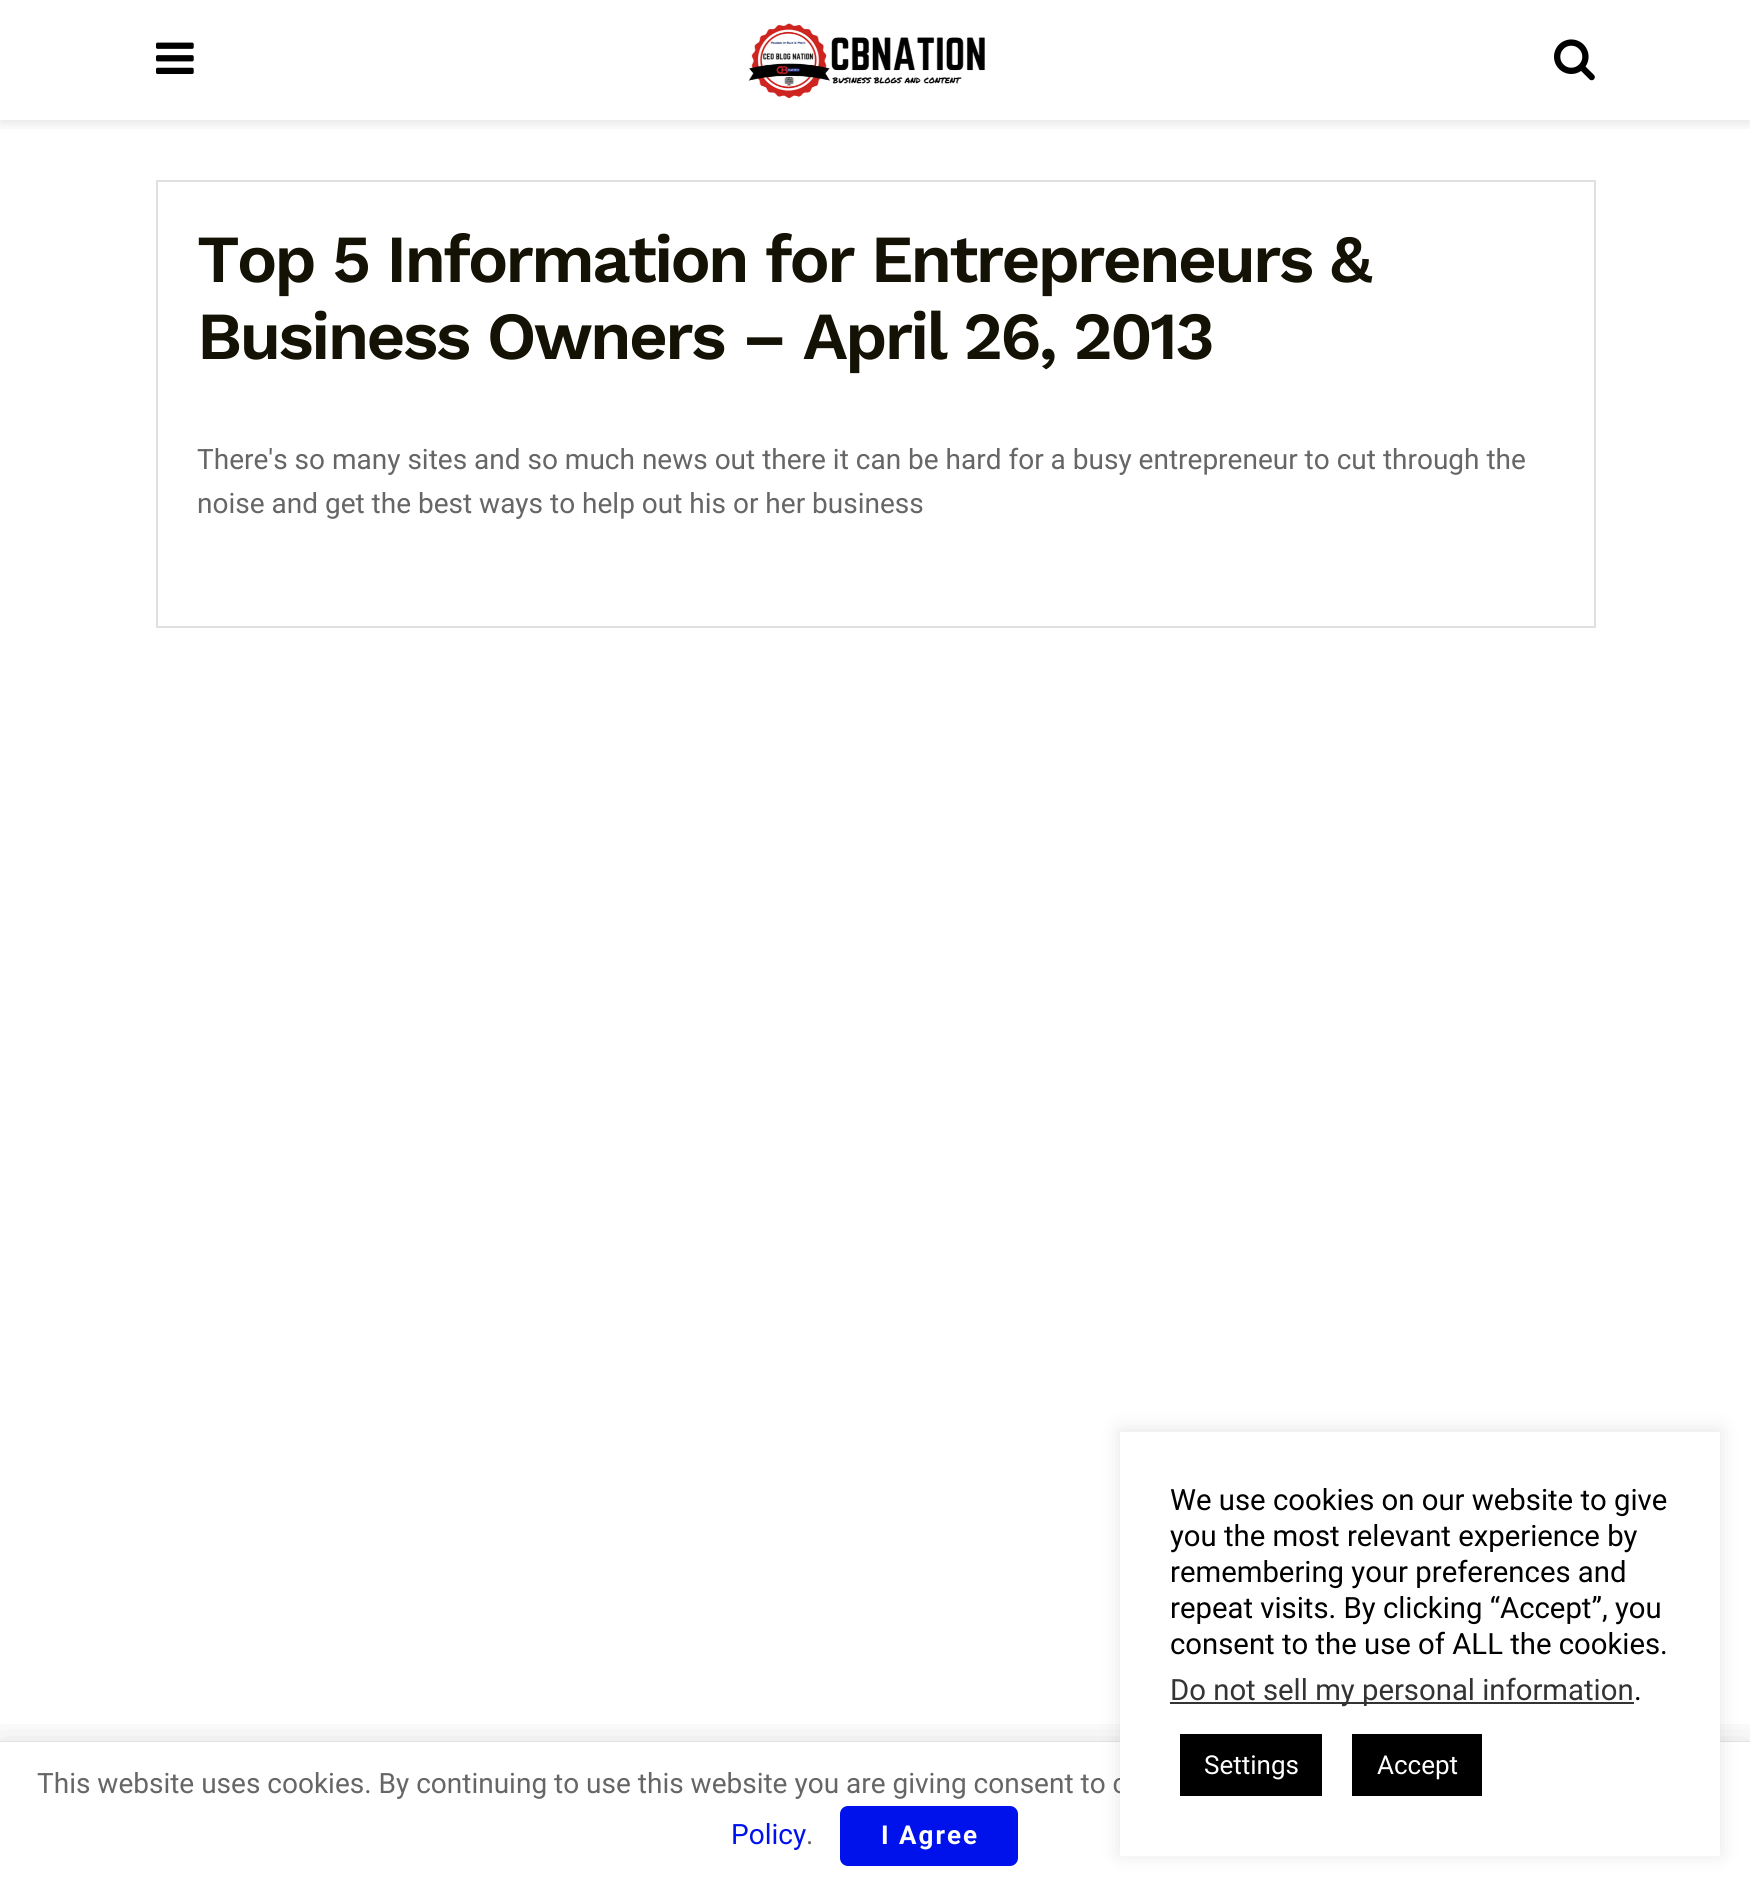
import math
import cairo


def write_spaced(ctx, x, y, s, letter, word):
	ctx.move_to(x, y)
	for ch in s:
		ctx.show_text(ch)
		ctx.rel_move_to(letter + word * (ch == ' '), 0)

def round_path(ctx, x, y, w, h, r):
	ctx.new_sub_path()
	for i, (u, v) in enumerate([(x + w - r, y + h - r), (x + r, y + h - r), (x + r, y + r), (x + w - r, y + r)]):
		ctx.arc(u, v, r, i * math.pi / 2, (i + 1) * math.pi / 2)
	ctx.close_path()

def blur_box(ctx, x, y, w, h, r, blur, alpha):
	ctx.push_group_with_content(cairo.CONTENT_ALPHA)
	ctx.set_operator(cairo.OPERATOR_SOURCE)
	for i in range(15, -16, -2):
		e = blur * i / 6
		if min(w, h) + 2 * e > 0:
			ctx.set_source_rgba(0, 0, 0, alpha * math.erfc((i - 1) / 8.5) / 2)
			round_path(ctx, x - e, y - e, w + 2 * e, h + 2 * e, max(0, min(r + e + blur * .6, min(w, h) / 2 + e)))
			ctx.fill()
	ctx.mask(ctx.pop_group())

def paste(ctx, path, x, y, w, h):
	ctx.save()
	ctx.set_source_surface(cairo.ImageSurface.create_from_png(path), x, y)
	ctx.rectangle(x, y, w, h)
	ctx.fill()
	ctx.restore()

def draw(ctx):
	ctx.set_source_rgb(1, 1, 1)
	ctx.paint()
	ctx.save()
	ctx.rectangle(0, 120, 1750, 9)
	ctx.clip()
	ctx.set_source_rgb(0, 0, 0)
	blur_box(ctx, 0, 4, 1750, 120, 0, 6, 0.1)
	ctx.restore()
	paste(ctx, 'media/1.png', 156, 42, 38, 32)
	paste(ctx, 'media/2.png', 748, 23, 237, 76)
	paste(ctx, 'media/3.png', 1554, 39, 41, 42)
	ctx.rectangle(157, 181, 1438, 446)
	ctx.set_source_rgb(0.878, 0.878, 0.878)
	ctx.stroke()
	ctx.select_font_face('Work Sans SemiBold')
	ctx.set_font_size(67.25)
	ctx.set_source_rgb(0.078, 0.071, 0.016)
	write_spaced(ctx, 197, 282, 'Top 5 Information for Entrepreneurs &', -2.7, 0)
	write_spaced(ctx, 197, 359, 'Business Owners – April 26, 2013', -2.7, 0)
	ctx.select_font_face('Roboto')
	ctx.set_font_size(28)
	ctx.set_source_rgb(0.4, 0.4, 0.4)
	ctx.move_to(197, 469)
	ctx.show_text('There\'s so many sites and so much news out there it can be hard for a busy entrepreneur to cut through the')
	ctx.move_to(197, 513)
	ctx.show_text('noise and get the best ways to help out his or her business')
	ctx.set_source_rgb(0.675, 0.671, 0.671)
	blur_box(ctx, 1120, 1430, 600, 424, 0, 10, 0.3)
	ctx.save()
	ctx.rectangle(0, 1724, 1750, 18)
	ctx.clip()
	ctx.set_source_rgb(0, 0, 0)
	blur_box(ctx, 0, 1746, 1750, 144, 0, 20, 0.15)
	ctx.restore()
	ctx.save()
	ctx.rectangle(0, 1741, 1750, 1)
	ctx.clip()
	ctx.set_source_rgb(0, 0, 0)
	blur_box(ctx, 0, 1742, 1750, 144, 0, 1, 0.2)
	ctx.restore()
	ctx.set_source_rgb(0.4, 0.4, 0.4)
	ctx.move_to(37, 1793)
	ctx.show_text('This website uses cookies. By continuing to use this website you are giving consent to c')
	ctx.set_source_rgb(1, 1, 1)
	ctx.rectangle(1120, 1432, 600, 424)
	ctx.fill()
	ctx.set_font_size(29.3)
	ctx.set_source_rgb(0, 0, 0)
	for x, y, s in [
		(1170, 1510, 'We use cookies on our website to give'),
		(1170, 1546, 'you the most relevant experience by'),
		(1170, 1582, 'remembering your preferences and'),
		(1170, 1618, 'repeat visits. By clicking “Accept”, you'),
		(1170, 1654, 'consent to the use of ALL the cookies.'),
	]:
		ctx.move_to(x, y)
		ctx.show_text(s)
	ctx.set_source_rgb(0.2, 0.2, 0.2)
	ctx.rectangle(1170, 1702, 464, 2)
	ctx.fill()
	ctx.move_to(1170, 1700)
	ctx.show_text('Do not sell my personal information')
	ctx.set_source_rgb(0, 0, 0)
	ctx.move_to(1634, 1700)
	ctx.show_text('.')
	ctx.rectangle(1180, 1734, 142, 62)
	ctx.fill()
	ctx.set_font_size(26)
	ctx.set_source_rgb(1, 1, 1)
	ctx.move_to(1204, 1774)
	ctx.show_text('Settings')
	ctx.set_source_rgb(0, 0, 0)
	ctx.rectangle(1352, 1734, 130, 62)
	ctx.fill()
	ctx.set_source_rgb(1, 1, 1)
	ctx.move_to(1377, 1774)
	ctx.show_text('Accept')
	ctx.set_font_size(28)
	ctx.set_source_rgb(0, 0.071, 0.918)
	ctx.move_to(731, 1844)
	ctx.show_text('Policy')
	ctx.set_source_rgb(0.4, 0.4, 0.4)
	ctx.move_to(806, 1844)
	ctx.show_text('.')
	ctx.set_source_rgb(0, 0.071, 0.918)
	round_path(ctx, 840, 1806, 178, 60, 8)
	ctx.fill()
	ctx.select_font_face('Roboto', cairo.FONT_SLANT_NORMAL, cairo.FONT_WEIGHT_BOLD)
	ctx.set_font_size(26)
	ctx.set_source_rgb(1, 1, 1)
	write_spaced(ctx, 881, 1844, 'I Agree', 2, 0)


surface = cairo.ImageSurface(cairo.FORMAT_RGB24, 1750, 1886)
ctx = cairo.Context(surface)
options = cairo.FontOptions()
options.set_hint_metrics(cairo.HINT_METRICS_OFF)
options.set_hint_style(cairo.HINT_STYLE_NONE)
ctx.set_font_options(options)
ctx.set_miter_limit(4)
draw(ctx)
surface.write_to_png('image.png')
